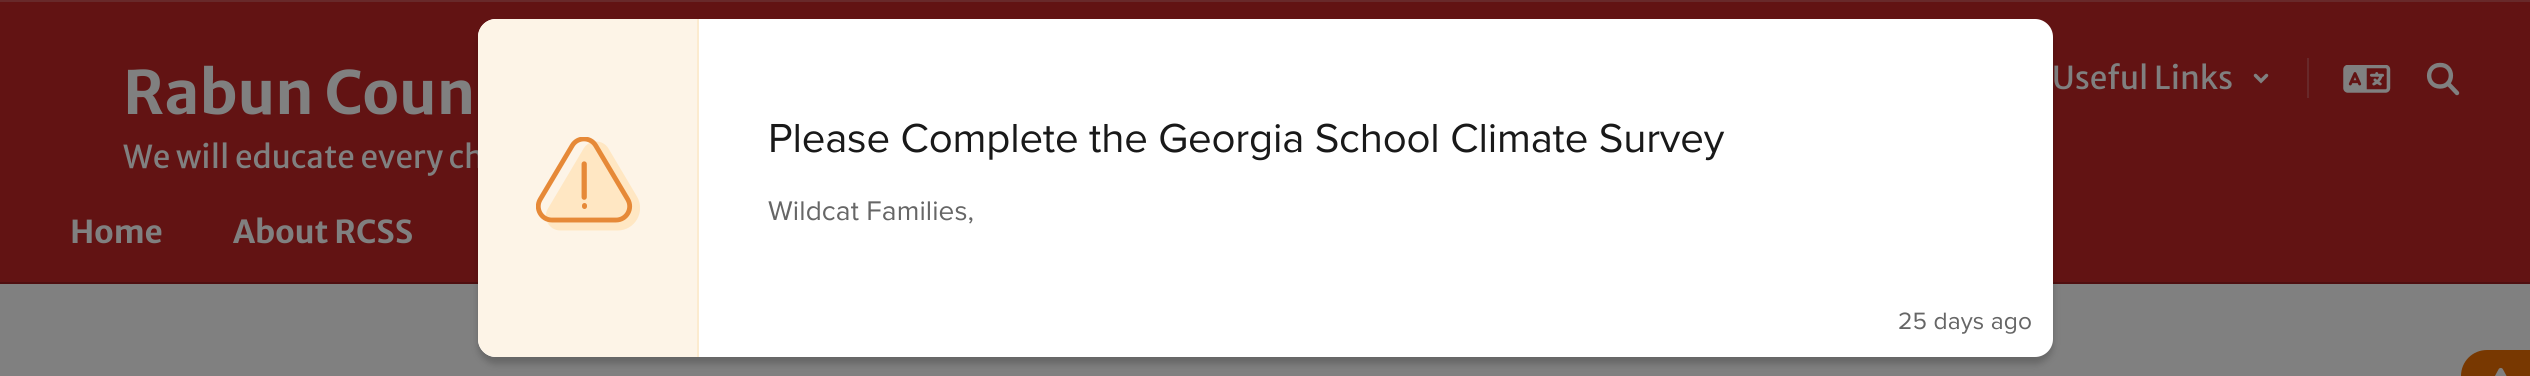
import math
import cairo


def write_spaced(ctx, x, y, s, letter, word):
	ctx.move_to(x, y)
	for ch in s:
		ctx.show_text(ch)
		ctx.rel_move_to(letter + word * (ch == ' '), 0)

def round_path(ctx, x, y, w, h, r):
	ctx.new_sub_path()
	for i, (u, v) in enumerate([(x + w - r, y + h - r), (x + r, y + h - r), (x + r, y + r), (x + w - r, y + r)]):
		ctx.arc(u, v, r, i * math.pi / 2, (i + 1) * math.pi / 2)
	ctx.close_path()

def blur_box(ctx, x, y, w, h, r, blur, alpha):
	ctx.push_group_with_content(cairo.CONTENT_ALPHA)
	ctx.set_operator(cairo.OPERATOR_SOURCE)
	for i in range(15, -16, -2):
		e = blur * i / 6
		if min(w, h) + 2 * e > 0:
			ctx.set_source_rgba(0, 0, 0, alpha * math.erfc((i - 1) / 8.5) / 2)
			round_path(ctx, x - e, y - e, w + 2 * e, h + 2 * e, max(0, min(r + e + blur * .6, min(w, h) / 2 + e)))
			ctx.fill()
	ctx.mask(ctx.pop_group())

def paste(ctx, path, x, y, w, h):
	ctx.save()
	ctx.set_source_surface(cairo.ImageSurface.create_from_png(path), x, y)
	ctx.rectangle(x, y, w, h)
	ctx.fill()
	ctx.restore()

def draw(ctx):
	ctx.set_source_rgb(0.502, 0.502, 0.502)
	ctx.paint()
	ctx.set_source_rgb(0.408, 0.161, 0.165)
	ctx.rectangle(0, 0, 2530, 2)
	ctx.fill()
	ctx.set_source_rgb(0.384, 0.075, 0.078)
	ctx.rectangle(0, 2, 2530, 280)
	ctx.fill()
	ctx.select_font_face('Merriweather Sans', cairo.FONT_SLANT_NORMAL, cairo.FONT_WEIGHT_BOLD)
	ctx.set_font_size(59.5)
	ctx.set_source_rgb(0.502, 0.502, 0.502)
	ctx.move_to(123, 114)
	ctx.show_text('Rabun Coun')
	ctx.select_font_face('Merriweather Sans')
	ctx.set_font_size(31.5)
	ctx.move_to(123, 168)
	ctx.show_text('We will educate every ch')
	ctx.set_source_rgb(0.408, 0.161, 0.165)
	ctx.rectangle(2307, 58, 2, 40)
	ctx.fill()
	ctx.set_source_rgb(0.502, 0.502, 0.502)
	ctx.move_to(2052, 89)
	ctx.show_text('Useful Links')
	ctx.new_path()
	ctx.move_to(2255.5, 75.5)
	ctx.line_to(2261, 81)
	ctx.line_to(2266.5, 75.5)
	ctx.set_line_width(3.5)
	ctx.set_line_cap(cairo.LINE_CAP_ROUND)
	ctx.stroke()
	paste(ctx, 'media/1.png', 2343, 65, 48, 28)
	ctx.new_path()
	ctx.move_to(2440, 86.5)
	ctx.curve_to(2454.5, 86.5, 2454.5, 64.5, 2440, 65)
	ctx.curve_to(2425.5, 65, 2425.5, 86.5, 2440, 86.5)
	ctx.close_path()
	ctx.set_line_width(4.4)
	ctx.set_line_cap(cairo.LINE_CAP_SQUARE)
	ctx.set_line_join(cairo.LINE_JOIN_ROUND)
	ctx.stroke()
	ctx.new_path()
	ctx.move_to(2457, 93)
	ctx.line_to(2448, 83.5)
	ctx.set_line_cap(cairo.LINE_CAP_ROUND)
	ctx.stroke()
	ctx.select_font_face('Merriweather Sans', cairo.FONT_SLANT_NORMAL, cairo.FONT_WEIGHT_BOLD)
	ctx.move_to(70, 243)
	ctx.show_text('Home')
	ctx.move_to(233, 243)
	ctx.show_text('About RCSS')
	ctx.set_source_rgb(0.31, 0.059, 0.063)
	ctx.rectangle(0, 282, 2530, 2)
	ctx.fill()
	ctx.set_source_rgb(0, 0, 0)
	blur_box(ctx, 478, 26, 1575, 338, 18, 3.5, 0.2)
	ctx.set_source_rgb(1, 1, 1)
	round_path(ctx, 478, 19, 1575, 338, 18)
	ctx.fill()
	ctx.set_source_rgb(0.992, 0.957, 0.906)
	ctx.new_path()
	ctx.move_to(496, 19)
	ctx.line_to(698, 19)
	ctx.line_to(698, 357)
	ctx.line_to(496, 357)
	ctx.curve_to(486, 357, 478, 349, 478, 339)
	ctx.line_to(478, 37)
	ctx.curve_to(478, 27, 486, 19, 496, 19)
	ctx.close_path()
	ctx.fill()
	ctx.set_source_rgb(0.988, 0.918, 0.812)
	ctx.rectangle(697, 19, 2, 338)
	ctx.fill()
	paste(ctx, 'media/2.png', 536, 137, 104, 94)
	ctx.select_font_face('Proxima Nova')
	ctx.set_font_size(42)
	ctx.set_source_rgb(0.098, 0.098, 0.098)
	write_spaced(ctx, 768, 152, 'Please Complete the Georgia School Climate Survey', -0.2, 0)
	ctx.set_font_size(28)
	ctx.set_source_rgb(0.4, 0.4, 0.4)
	write_spaced(ctx, 768, 220, 'Wildcat Families,', 0.1, 0)
	ctx.set_font_size(24.5)
	write_spaced(ctx, 1898, 329, '25 days ago', 0.1, 0)
	ctx.set_source_rgb(0.471, 0.22, 0.004)
	ctx.new_path()
	ctx.move_to(2487, 350)
	ctx.line_to(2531, 350)
	ctx.line_to(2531, 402)
	ctx.line_to(2487, 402)
	ctx.curve_to(2472.5, 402, 2461, 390.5, 2461, 376)
	ctx.curve_to(2461, 361.5, 2472.5, 350, 2487, 350)
	ctx.close_path()
	ctx.fill()
	paste(ctx, 'media/3.png', 2495, 367, 12, 9)


surface = cairo.ImageSurface(cairo.FORMAT_RGB24, 2530, 376)
ctx = cairo.Context(surface)
options = cairo.FontOptions()
options.set_hint_metrics(cairo.HINT_METRICS_OFF)
options.set_hint_style(cairo.HINT_STYLE_NONE)
ctx.set_font_options(options)
ctx.set_miter_limit(4)
draw(ctx)
surface.write_to_png('image.png')
